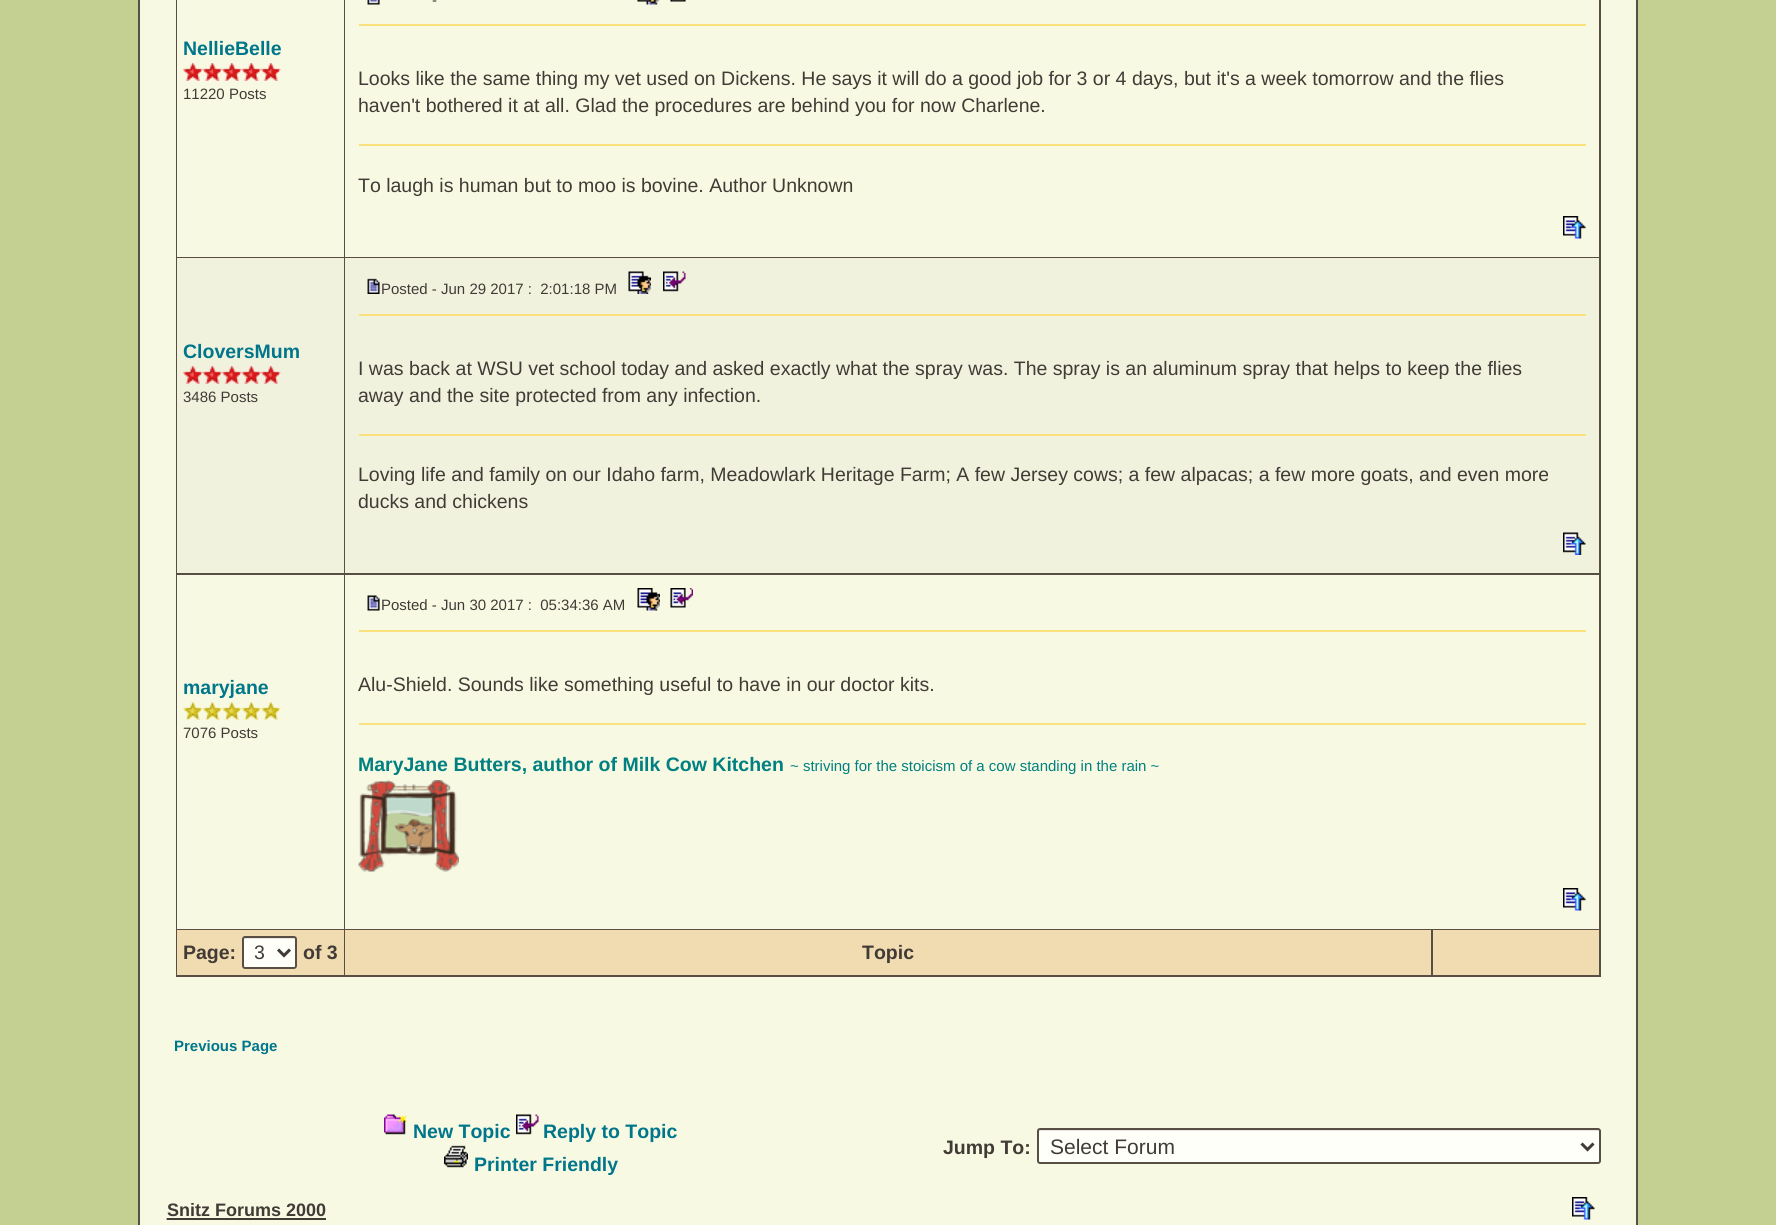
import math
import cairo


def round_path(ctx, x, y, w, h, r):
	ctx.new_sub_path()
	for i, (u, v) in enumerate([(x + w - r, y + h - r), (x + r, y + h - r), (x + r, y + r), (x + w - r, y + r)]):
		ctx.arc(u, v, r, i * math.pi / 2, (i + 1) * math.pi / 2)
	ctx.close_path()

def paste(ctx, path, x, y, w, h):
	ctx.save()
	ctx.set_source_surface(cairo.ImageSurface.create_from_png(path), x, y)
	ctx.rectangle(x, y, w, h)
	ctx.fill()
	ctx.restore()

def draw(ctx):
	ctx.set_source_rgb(0.769, 0.812, 0.573)
	ctx.paint()
	ctx.set_source_rgb(0.969, 0.973, 0.89)
	ctx.rectangle(140, 0, 1496, 1225)
	ctx.fill()
	ctx.set_source_rgb(0.345, 0.306, 0.267)
	ctx.set_fill_rule(cairo.FILL_RULE_EVEN_ODD)
	ctx.new_path()
	ctx.move_to(138, -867)
	ctx.line_to(1638, -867)
	ctx.line_to(1638, 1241)
	ctx.curve_to(1638, 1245, 1635, 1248, 1631, 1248)
	ctx.line_to(145, 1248)
	ctx.curve_to(141, 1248, 138, 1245, 138, 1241)
	ctx.close_path()
	ctx.move_to(140, -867)
	ctx.line_to(1636, -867)
	ctx.line_to(1636, 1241)
	ctx.curve_to(1636, 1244, 1634, 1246, 1631, 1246)
	ctx.line_to(145, 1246)
	ctx.curve_to(142, 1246, 140, 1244, 140, 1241)
	ctx.close_path()
	ctx.fill()
	ctx.rectangle(176, 0, 1425, 977)
	ctx.fill()
	ctx.set_source_rgb(0.969, 0.973, 0.89)
	ctx.rectangle(177, 0, 167, 257)
	ctx.fill()
	ctx.select_font_face('Liberation Sans', cairo.FONT_SLANT_NORMAL, cairo.FONT_WEIGHT_BOLD)
	ctx.set_font_size(19.5)
	ctx.set_source_rgb(0, 0.463, 0.545)
	ctx.move_to(183, 55)
	ctx.show_text('NellieBelle')
	paste(ctx, 'media/1.png', 183, 63, 20, 18)
	paste(ctx, 'media/2.png', 202, 63, 20, 18)
	paste(ctx, 'media/1.png', 222, 63, 20, 18)
	paste(ctx, 'media/2.png', 241, 63, 20, 18)
	paste(ctx, 'media/3.png', 261, 63, 20, 18)
	ctx.select_font_face('Liberation Sans')
	ctx.set_font_size(15)
	ctx.set_source_rgb(0.255, 0.231, 0.212)
	ctx.move_to(183, 99)
	ctx.show_text('11220 Posts')
	ctx.set_source_rgb(0.969, 0.973, 0.89)
	ctx.rectangle(345, 0, 1254, 257)
	ctx.fill()
	paste(ctx, 'media/4.png', 367, 0, 13, 5)
	ctx.set_source_rgb(0.255, 0.231, 0.212)
	ctx.move_to(432, 5)
	ctx.show_text('-')
	paste(ctx, 'media/5.png', 637, 0, 23, 5)
	paste(ctx, 'media/6.png', 670, 0, 16, 2)
	ctx.set_source_rgb(0.984, 0.882, 0.494)
	ctx.rectangle(359, 24, 1227, 2)
	ctx.fill()
	ctx.set_font_size(19.5)
	ctx.set_source_rgb(0.255, 0.231, 0.212)
	ctx.move_to(358, 85)
	ctx.show_text('Looks like the same thing my vet used on Dickens. He says it will do a good job for 3 or 4 days, but it\'s a week tomorrow and the flies')
	ctx.move_to(358, 112)
	ctx.show_text('haven\'t bothered it at all. Glad the procedures are behind you for now Charlene.')
	ctx.set_source_rgb(0.984, 0.882, 0.494)
	ctx.rectangle(359, 144, 1227, 2)
	ctx.fill()
	ctx.set_source_rgb(0.255, 0.231, 0.212)
	ctx.move_to(358, 192)
	ctx.show_text('To laugh is human but to moo is bovine. Author Unknown')
	paste(ctx, 'media/7.png', 1563, 216, 23, 23)
	ctx.set_source_rgb(0.945, 0.949, 0.871)
	ctx.rectangle(177, 258, 167, 315)
	ctx.fill()
	ctx.select_font_face('Liberation Sans', cairo.FONT_SLANT_NORMAL, cairo.FONT_WEIGHT_BOLD)
	ctx.set_source_rgb(0, 0.463, 0.545)
	ctx.move_to(183, 358)
	ctx.show_text('CloversMum')
	paste(ctx, 'media/8.png', 183, 366, 20, 18)
	paste(ctx, 'media/9.png', 202, 366, 20, 18)
	paste(ctx, 'media/8.png', 222, 366, 20, 18)
	paste(ctx, 'media/9.png', 241, 366, 20, 18)
	paste(ctx, 'media/10.png', 261, 366, 20, 18)
	ctx.select_font_face('Liberation Sans')
	ctx.set_font_size(15)
	ctx.set_source_rgb(0.255, 0.231, 0.212)
	ctx.move_to(183, 402)
	ctx.show_text('3486 Posts')
	ctx.set_source_rgb(0.945, 0.949, 0.871)
	ctx.rectangle(345, 258, 1254, 315)
	ctx.fill()
	paste(ctx, 'media/11.png', 367, 278, 13, 16)
	ctx.set_source_rgb(0.255, 0.231, 0.212)
	ctx.move_to(381, 294)
	ctx.show_text('Posted - Jun 29 2017 :  2:01:18 PM')
	paste(ctx, 'media/12.png', 628, 271, 23, 23)
	paste(ctx, 'media/13.png', 663, 271, 23, 21)
	ctx.set_source_rgb(0.984, 0.882, 0.494)
	ctx.rectangle(359, 314, 1227, 2)
	ctx.fill()
	ctx.set_font_size(19.5)
	ctx.set_source_rgb(0.255, 0.231, 0.212)
	ctx.move_to(358, 375)
	ctx.show_text('I was back at WSU vet school today and asked exactly what the spray was. The spray is an aluminum spray that helps to keep the flies')
	ctx.move_to(358, 402)
	ctx.show_text('away and the site protected from any infection.')
	ctx.set_source_rgb(0.984, 0.882, 0.494)
	ctx.rectangle(359, 434, 1227, 2)
	ctx.fill()
	ctx.set_source_rgb(0.255, 0.231, 0.212)
	ctx.move_to(358, 481)
	ctx.show_text('Loving life and family on our Idaho farm, Meadowlark Heritage Farm; A few Jersey cows; a few alpacas; a few more goats, and even more')
	ctx.move_to(358, 508)
	ctx.show_text('ducks and chickens')
	paste(ctx, 'media/14.png', 1563, 532, 23, 23)
	ctx.set_source_rgb(0.969, 0.973, 0.89)
	ctx.rectangle(177, 575, 167, 354)
	ctx.fill()
	ctx.select_font_face('Liberation Sans', cairo.FONT_SLANT_NORMAL, cairo.FONT_WEIGHT_BOLD)
	ctx.set_source_rgb(0, 0.463, 0.545)
	ctx.move_to(183, 694)
	ctx.show_text('maryjane')
	paste(ctx, 'media/15.png', 183, 702, 20, 18)
	paste(ctx, 'media/16.png', 202, 702, 20, 18)
	paste(ctx, 'media/15.png', 222, 702, 20, 18)
	paste(ctx, 'media/16.png', 241, 702, 20, 18)
	paste(ctx, 'media/17.png', 261, 702, 20, 18)
	ctx.select_font_face('Liberation Sans')
	ctx.set_font_size(15)
	ctx.set_source_rgb(0.255, 0.231, 0.212)
	ctx.move_to(183, 738)
	ctx.show_text('7076 Posts')
	ctx.set_source_rgb(0.969, 0.973, 0.89)
	ctx.rectangle(345, 575, 1254, 354)
	ctx.fill()
	paste(ctx, 'media/18.png', 367, 595, 13, 16)
	ctx.set_source_rgb(0.255, 0.231, 0.212)
	ctx.move_to(381, 610)
	ctx.show_text('Posted - Jun 30 2017 :  05:34:36 AM')
	paste(ctx, 'media/19.png', 637, 588, 23, 23)
	paste(ctx, 'media/20.png', 670, 588, 23, 20)
	ctx.set_source_rgb(0.984, 0.882, 0.494)
	ctx.rectangle(359, 630, 1227, 2)
	ctx.fill()
	ctx.set_font_size(19.5)
	ctx.set_source_rgb(0.255, 0.231, 0.212)
	ctx.move_to(358, 691)
	ctx.show_text('Alu-Shield. Sounds like something useful to have in our doctor kits.')
	ctx.set_source_rgb(0.984, 0.882, 0.494)
	ctx.rectangle(359, 723, 1227, 2)
	ctx.fill()
	ctx.select_font_face('Liberation Sans', cairo.FONT_SLANT_NORMAL, cairo.FONT_WEIGHT_BOLD)
	ctx.set_source_rgb(0, 0.502, 0.502)
	ctx.move_to(358, 771)
	ctx.show_text('MaryJane Butters, author of Milk Cow Kitchen')
	ctx.select_font_face('Liberation Sans')
	ctx.set_font_size(15)
	ctx.move_to(790, 771)
	ctx.show_text('~ striving for the stoicism of a cow standing in the rain ~')
	paste(ctx, 'media/21.png', 358, 780, 101, 92)
	paste(ctx, 'media/7.png', 1563, 888, 23, 23)
	ctx.set_source_rgb(0.945, 0.863, 0.698)
	ctx.rectangle(177, 930, 167, 45)
	ctx.fill()
	ctx.select_font_face('Liberation Sans', cairo.FONT_SLANT_NORMAL, cairo.FONT_WEIGHT_BOLD)
	ctx.set_font_size(19.5)
	ctx.set_source_rgb(0.255, 0.231, 0.212)
	ctx.move_to(183, 959)
	ctx.show_text('Page:')
	ctx.set_source_rgb(1, 1, 0.973)
	round_path(ctx, 242, 936, 55, 33, 3)
	ctx.fill()
	ctx.set_source_rgb(0.902, 0.902, 0.875)
	ctx.set_fill_rule(cairo.FILL_RULE_WINDING)
	ctx.new_path()
	ctx.move_to(246, 939)
	ctx.line_to(296, 939)
	ctx.line_to(295, 938)
	ctx.line_to(253, 938)
	ctx.curve_to(243, 938, 243, 936, 243, 944)
	ctx.line_to(243, 958)
	ctx.curve_to(243, 959, 242, 967, 244, 968)
	ctx.line_to(244, 939)
	ctx.close_path()
	ctx.fill()
	round_path(ctx, 243, 937, 53, 31, 2)
	ctx.set_source_rgb(0.345, 0.306, 0.267)
	ctx.stroke()
	ctx.new_path()
	ctx.move_to(278, 949.5)
	ctx.line_to(284, 955.5)
	ctx.line_to(290, 949.5)
	ctx.set_source_rgb(0.255, 0.231, 0.212)
	ctx.set_line_width(3)
	ctx.stroke()
	ctx.select_font_face('Liberation Sans')
	ctx.move_to(254, 959)
	ctx.show_text('3')
	ctx.select_font_face('Liberation Sans', cairo.FONT_SLANT_NORMAL, cairo.FONT_WEIGHT_BOLD)
	ctx.move_to(303, 959)
	ctx.show_text('of 3')
	ctx.set_source_rgb(0.945, 0.863, 0.698)
	ctx.rectangle(345, 930, 1086, 45)
	ctx.fill()
	ctx.set_source_rgb(0.255, 0.231, 0.212)
	ctx.move_to(862, 959)
	ctx.show_text('Topic')
	ctx.set_source_rgb(0.945, 0.863, 0.698)
	ctx.rectangle(1433, 930, 166, 45)
	ctx.fill()
	ctx.set_font_size(15)
	ctx.set_source_rgb(0, 0.463, 0.545)
	ctx.move_to(174, 1051)
	ctx.show_text('Previous Page')
	paste(ctx, 'media/22.png', 384, 1114, 23, 21)
	ctx.set_font_size(19.5)
	ctx.move_to(413, 1138)
	ctx.show_text('New Topic')
	paste(ctx, 'media/23.png', 516, 1114, 23, 21)
	ctx.move_to(543, 1138)
	ctx.show_text('Reply to Topic')
	paste(ctx, 'media/24.png', 444, 1145, 24, 23)
	ctx.move_to(474, 1171)
	ctx.show_text('Printer Friendly')
	ctx.set_source_rgb(0.255, 0.231, 0.212)
	ctx.move_to(943, 1154)
	ctx.show_text('Jump To:')
	ctx.set_source_rgb(1, 1, 0.973)
	round_path(ctx, 1037, 1128, 564, 36, 3)
	ctx.fill()
	ctx.set_source_rgb(0.902, 0.902, 0.875)
	ctx.new_path()
	ctx.move_to(1041, 1131)
	ctx.line_to(1599, 1131)
	ctx.curve_to(1599, 1130, 1598, 1130, 1598, 1130)
	ctx.line_to(1040, 1130)
	ctx.curve_to(1039, 1130, 1038, 1131, 1038, 1132)
	ctx.line_to(1038, 1162)
	ctx.curve_to(1038, 1162, 1039, 1163, 1039, 1163)
	ctx.line_to(1039, 1132)
	ctx.close_path()
	ctx.fill()
	round_path(ctx, 1038, 1129, 562, 34, 2)
	ctx.set_source_rgb(0.345, 0.306, 0.267)
	ctx.set_line_width(2)
	ctx.stroke()
	ctx.new_path()
	ctx.move_to(1581.5, 1143.5)
	ctx.line_to(1587.5, 1149.5)
	ctx.line_to(1593.5, 1143.5)
	ctx.set_source_rgb(0.255, 0.231, 0.212)
	ctx.set_line_width(3)
	ctx.stroke()
	ctx.select_font_face('Liberation Sans')
	ctx.set_font_size(21)
	ctx.move_to(1050, 1154)
	ctx.show_text('Select Forum')
	ctx.select_font_face('Liberation Sans', cairo.FONT_SLANT_NORMAL, cairo.FONT_WEIGHT_BOLD)
	ctx.set_font_size(18)
	ctx.move_to(167, 1216)
	ctx.show_text('Snitz Forums 2000')
	ctx.new_path()
	ctx.move_to(166.5, 1219)
	ctx.line_to(325.5, 1219)
	ctx.set_line_width(1.5)
	ctx.set_dash([1.5, 1.5])
	ctx.stroke()
	ctx.rectangle(167, 1218, 159, 2)
	ctx.fill()
	paste(ctx, 'media/7.png', 1572, 1197, 23, 23)


surface = cairo.ImageSurface(cairo.FORMAT_RGB24, 1776, 1225)
ctx = cairo.Context(surface)
options = cairo.FontOptions()
options.set_hint_metrics(cairo.HINT_METRICS_OFF)
options.set_hint_style(cairo.HINT_STYLE_NONE)
ctx.set_font_options(options)
ctx.set_miter_limit(4)
draw(ctx)
surface.write_to_png('image.png')
